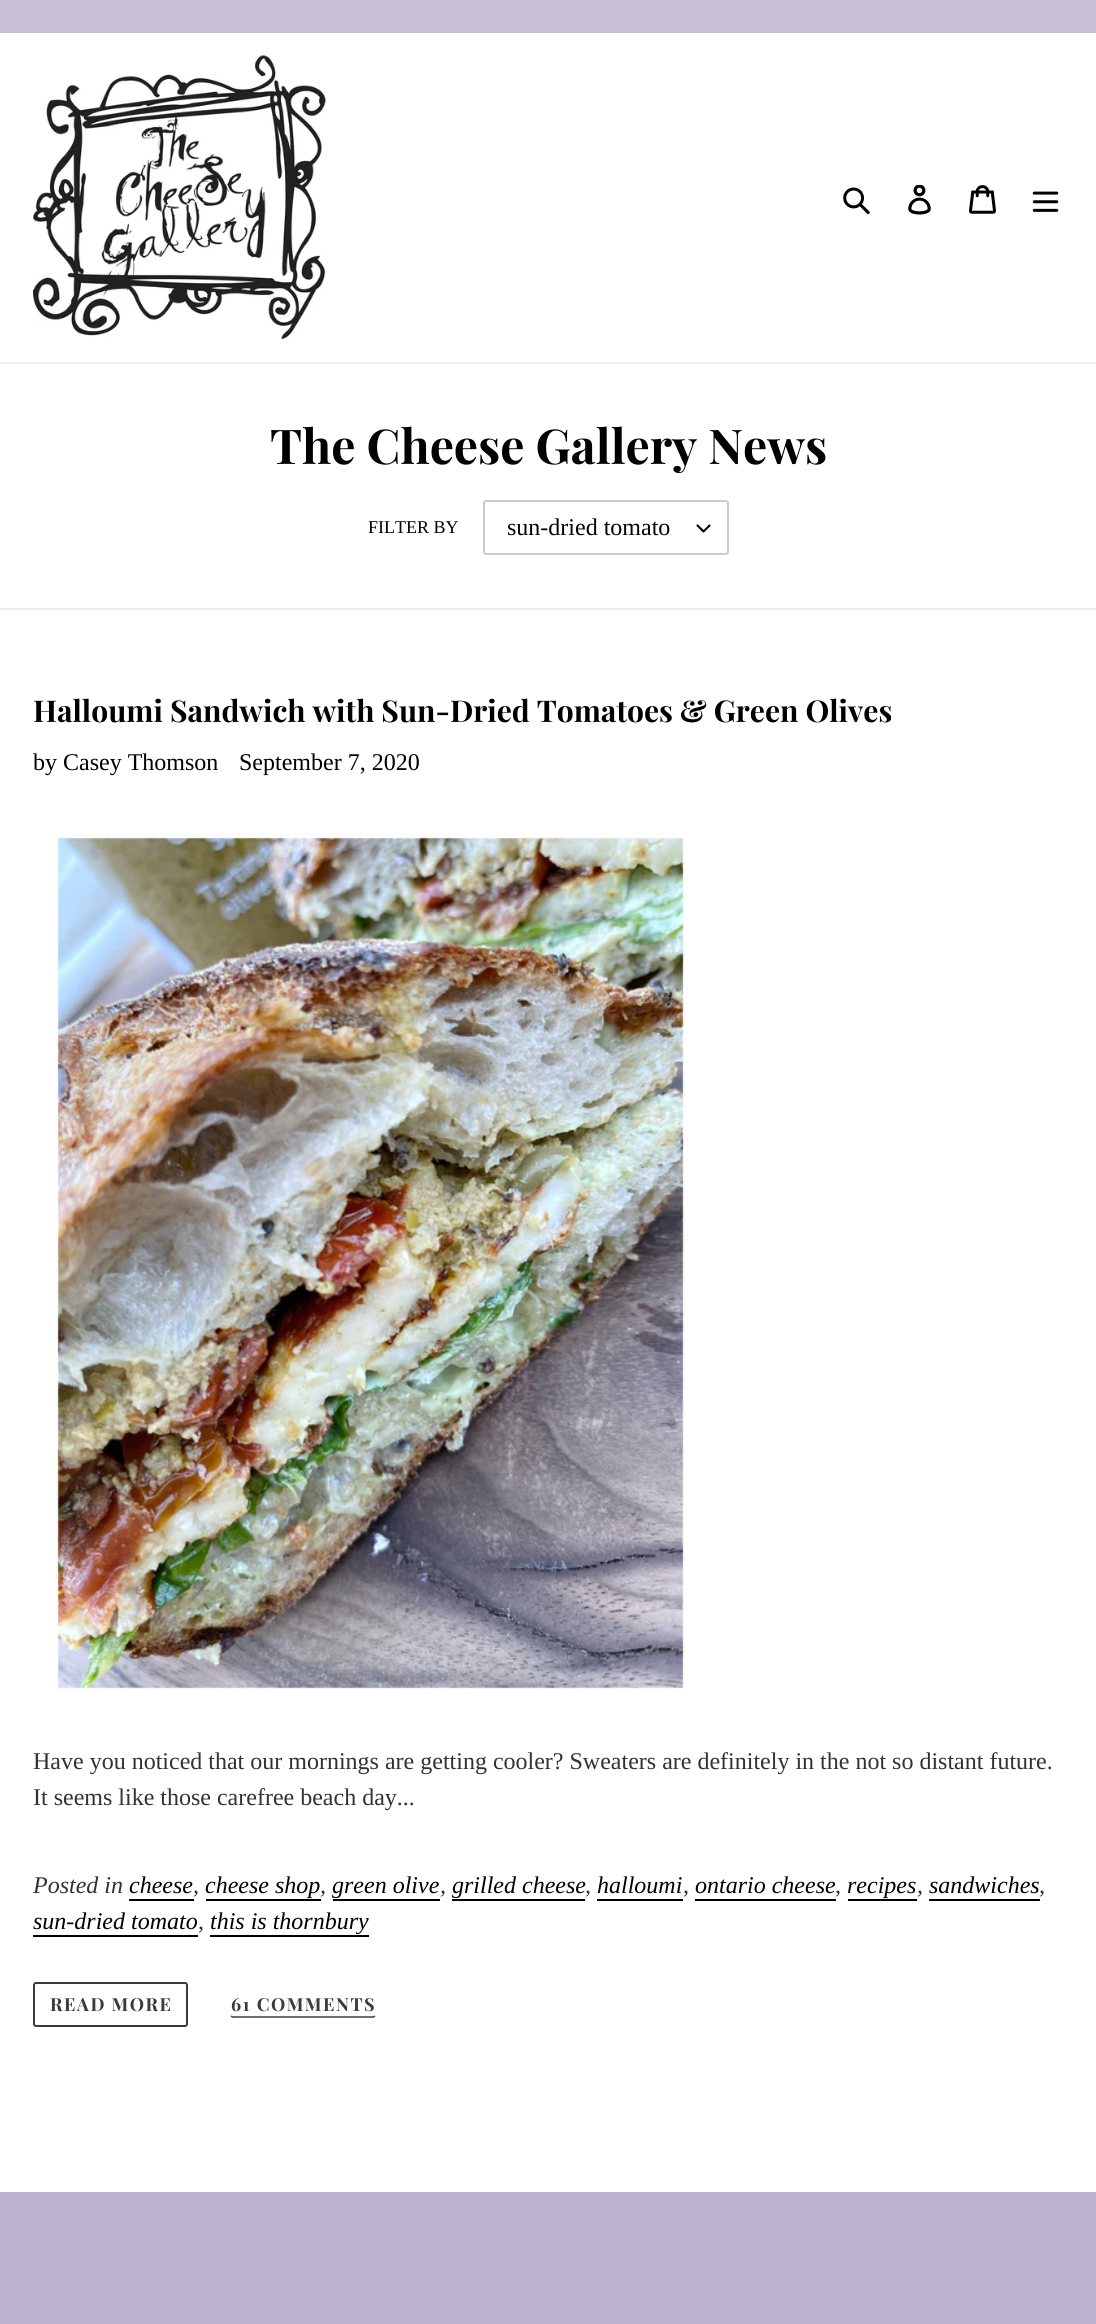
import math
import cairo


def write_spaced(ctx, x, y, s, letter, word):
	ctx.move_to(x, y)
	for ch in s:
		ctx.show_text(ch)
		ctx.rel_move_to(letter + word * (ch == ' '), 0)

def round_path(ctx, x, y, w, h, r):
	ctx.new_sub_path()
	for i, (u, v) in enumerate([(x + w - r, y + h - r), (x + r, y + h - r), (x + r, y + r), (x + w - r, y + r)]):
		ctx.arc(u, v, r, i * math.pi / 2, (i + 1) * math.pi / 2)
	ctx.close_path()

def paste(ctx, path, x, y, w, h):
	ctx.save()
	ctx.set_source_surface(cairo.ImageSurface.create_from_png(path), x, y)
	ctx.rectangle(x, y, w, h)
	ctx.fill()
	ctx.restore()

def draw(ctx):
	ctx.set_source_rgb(1, 1, 1)
	ctx.paint()
	ctx.set_source_rgb(0.784, 0.753, 0.847)
	ctx.rectangle(0, 0, 1096, 33)
	ctx.fill()
	ctx.set_source_rgb(0.922, 0.922, 0.922)
	ctx.rectangle(0, 362, 1096, 2)
	ctx.fill()
	paste(ctx, 'media/1.png', 33, 55, 293, 284)
	paste(ctx, 'media/2.png', 843, 187, 27, 28)
	paste(ctx, 'media/3.png', 908, 185, 23, 30)
	paste(ctx, 'media/4.png', 969, 185, 27, 29)
	paste(ctx, 'media/5.png', 1032, 191, 27, 21)
	ctx.select_font_face('Playfair Display', cairo.FONT_SLANT_NORMAL, cairo.FONT_WEIGHT_BOLD)
	ctx.set_font_size(48)
	ctx.set_source_rgb(0, 0, 0)
	ctx.move_to(270, 464)
	ctx.show_text('The Cheese Gallery News')
	ctx.select_font_face('Liberation Serif')
	ctx.set_font_size(18)
	ctx.move_to(368, 533)
	ctx.show_text('FILTER BY')
	paste(ctx, 'media/6.png', 696, 524, 15, 9)
	round_path(ctx, 484, 501, 244, 53, 2)
	ctx.set_source_rgb(0.8, 0.8, 0.8)
	ctx.stroke()
	ctx.set_font_size(24)
	ctx.set_source_rgb(0, 0, 0)
	ctx.move_to(507, 535)
	ctx.show_text('sun-dried tomato')
	ctx.set_source_rgb(0.922, 0.922, 0.922)
	ctx.rectangle(0, 608, 1096, 2)
	ctx.fill()
	ctx.select_font_face('Playfair Display', cairo.FONT_SLANT_NORMAL, cairo.FONT_WEIGHT_BOLD)
	ctx.set_font_size(30)
	ctx.set_source_rgb(0, 0, 0)
	ctx.move_to(33, 722)
	ctx.show_text('Halloumi Sandwich with Sun-Dried Tomatoes & Green Olives')
	ctx.select_font_face('Liberation Serif')
	ctx.set_font_size(24)
	ctx.move_to(33, 770)
	ctx.show_text('by Casey Thomson')
	ctx.move_to(239, 770)
	ctx.show_text('September 7, 2020')
	paste(ctx, 'media/7.png', 53, 833, 632, 860)
	ctx.set_source_rgb(0.2, 0.196, 0.196)
	ctx.move_to(33, 1769)
	ctx.show_text('Have you noticed that our mornings are getting cooler? Sweaters are definitely in the not so distant future.')
	ctx.move_to(33, 1805)
	ctx.show_text('It seems like those carefree beach day...')
	ctx.select_font_face('Liberation Serif', cairo.FONT_SLANT_ITALIC)
	ctx.move_to(33, 1893)
	ctx.show_text('Posted in')
	ctx.set_source_rgb(0, 0, 0)
	ctx.move_to(129, 1893)
	ctx.show_text('cheese')
	ctx.rectangle(129, 1899, 65, 2)
	ctx.fill()
	ctx.set_source_rgb(0.2, 0.196, 0.196)
	ctx.move_to(193, 1893)
	ctx.show_text(',')
	ctx.set_source_rgb(0, 0, 0)
	ctx.move_to(205, 1893)
	ctx.show_text('cheese shop')
	ctx.rectangle(206, 1899, 115, 2)
	ctx.fill()
	ctx.set_source_rgb(0.2, 0.196, 0.196)
	ctx.move_to(320, 1893)
	ctx.show_text(',')
	ctx.set_source_rgb(0, 0, 0)
	ctx.move_to(332, 1893)
	ctx.show_text('green olive')
	ctx.rectangle(333, 1899, 107, 2)
	ctx.fill()
	ctx.set_source_rgb(0.2, 0.196, 0.196)
	ctx.move_to(440, 1893)
	ctx.show_text(',')
	ctx.set_source_rgb(0, 0, 0)
	ctx.move_to(452, 1893)
	ctx.show_text('grilled cheese')
	ctx.rectangle(452, 1899, 133, 2)
	ctx.fill()
	ctx.set_source_rgb(0.2, 0.196, 0.196)
	ctx.move_to(585, 1893)
	ctx.show_text(',')
	ctx.set_source_rgb(0, 0, 0)
	ctx.move_to(597, 1893)
	ctx.show_text('halloumi')
	ctx.rectangle(597, 1899, 86, 2)
	ctx.fill()
	ctx.set_source_rgb(0.2, 0.196, 0.196)
	ctx.move_to(683, 1893)
	ctx.show_text(',')
	ctx.set_source_rgb(0, 0, 0)
	ctx.move_to(695, 1893)
	ctx.show_text('ontario cheese')
	ctx.rectangle(695, 1899, 141, 2)
	ctx.fill()
	ctx.set_source_rgb(0.2, 0.196, 0.196)
	ctx.move_to(835, 1893)
	ctx.show_text(',')
	ctx.set_source_rgb(0, 0, 0)
	ctx.move_to(847, 1893)
	ctx.show_text('recipes')
	ctx.rectangle(848, 1899, 69, 2)
	ctx.fill()
	ctx.set_source_rgb(0.2, 0.196, 0.196)
	ctx.move_to(917, 1893)
	ctx.show_text(',')
	ctx.set_source_rgb(0, 0, 0)
	ctx.move_to(929, 1893)
	ctx.show_text('sandwiches')
	ctx.rectangle(929, 1899, 111, 2)
	ctx.fill()
	ctx.set_source_rgb(0.2, 0.196, 0.196)
	ctx.move_to(1039, 1893)
	ctx.show_text(',')
	ctx.set_source_rgb(0, 0, 0)
	ctx.move_to(33, 1929)
	ctx.show_text('sun-dried tomato')
	ctx.rectangle(33, 1935, 165, 2)
	ctx.fill()
	ctx.set_source_rgb(0.2, 0.196, 0.196)
	ctx.move_to(198, 1929)
	ctx.show_text(',')
	ctx.set_source_rgb(0, 0, 0)
	ctx.move_to(210, 1929)
	ctx.show_text('this is thornbury')
	ctx.rectangle(210, 1935, 159, 2)
	ctx.fill()
	round_path(ctx, 34, 1983, 153, 43, 2)
	ctx.set_source_rgb(0.227, 0.227, 0.227)
	ctx.stroke()
	ctx.select_font_face('Playfair Display', cairo.FONT_SLANT_NORMAL, cairo.FONT_WEIGHT_BOLD)
	ctx.set_font_size(18)
	write_spaced(ctx, 50, 2011, 'READ MORE', 1.5, 0)
	ctx.new_path()
	ctx.move_to(375, 2016)
	ctx.line_to(373.5, 2017)
	ctx.line_to(232.5, 2017)
	ctx.line_to(231, 2016)
	ctx.set_line_width(1.5)
	ctx.stroke()
	write_spaced(ctx, 231, 2011, '61 COMMENTS', 1.5, 0)
	ctx.set_source_rgb(0.737, 0.698, 0.812)
	ctx.rectangle(0, 2192, 1096, 132)
	ctx.fill()


surface = cairo.ImageSurface(cairo.FORMAT_RGB24, 1096, 2324)
ctx = cairo.Context(surface)
options = cairo.FontOptions()
options.set_hint_metrics(cairo.HINT_METRICS_OFF)
options.set_hint_style(cairo.HINT_STYLE_NONE)
ctx.set_font_options(options)
ctx.set_miter_limit(4)
draw(ctx)
surface.write_to_png('image.png')
